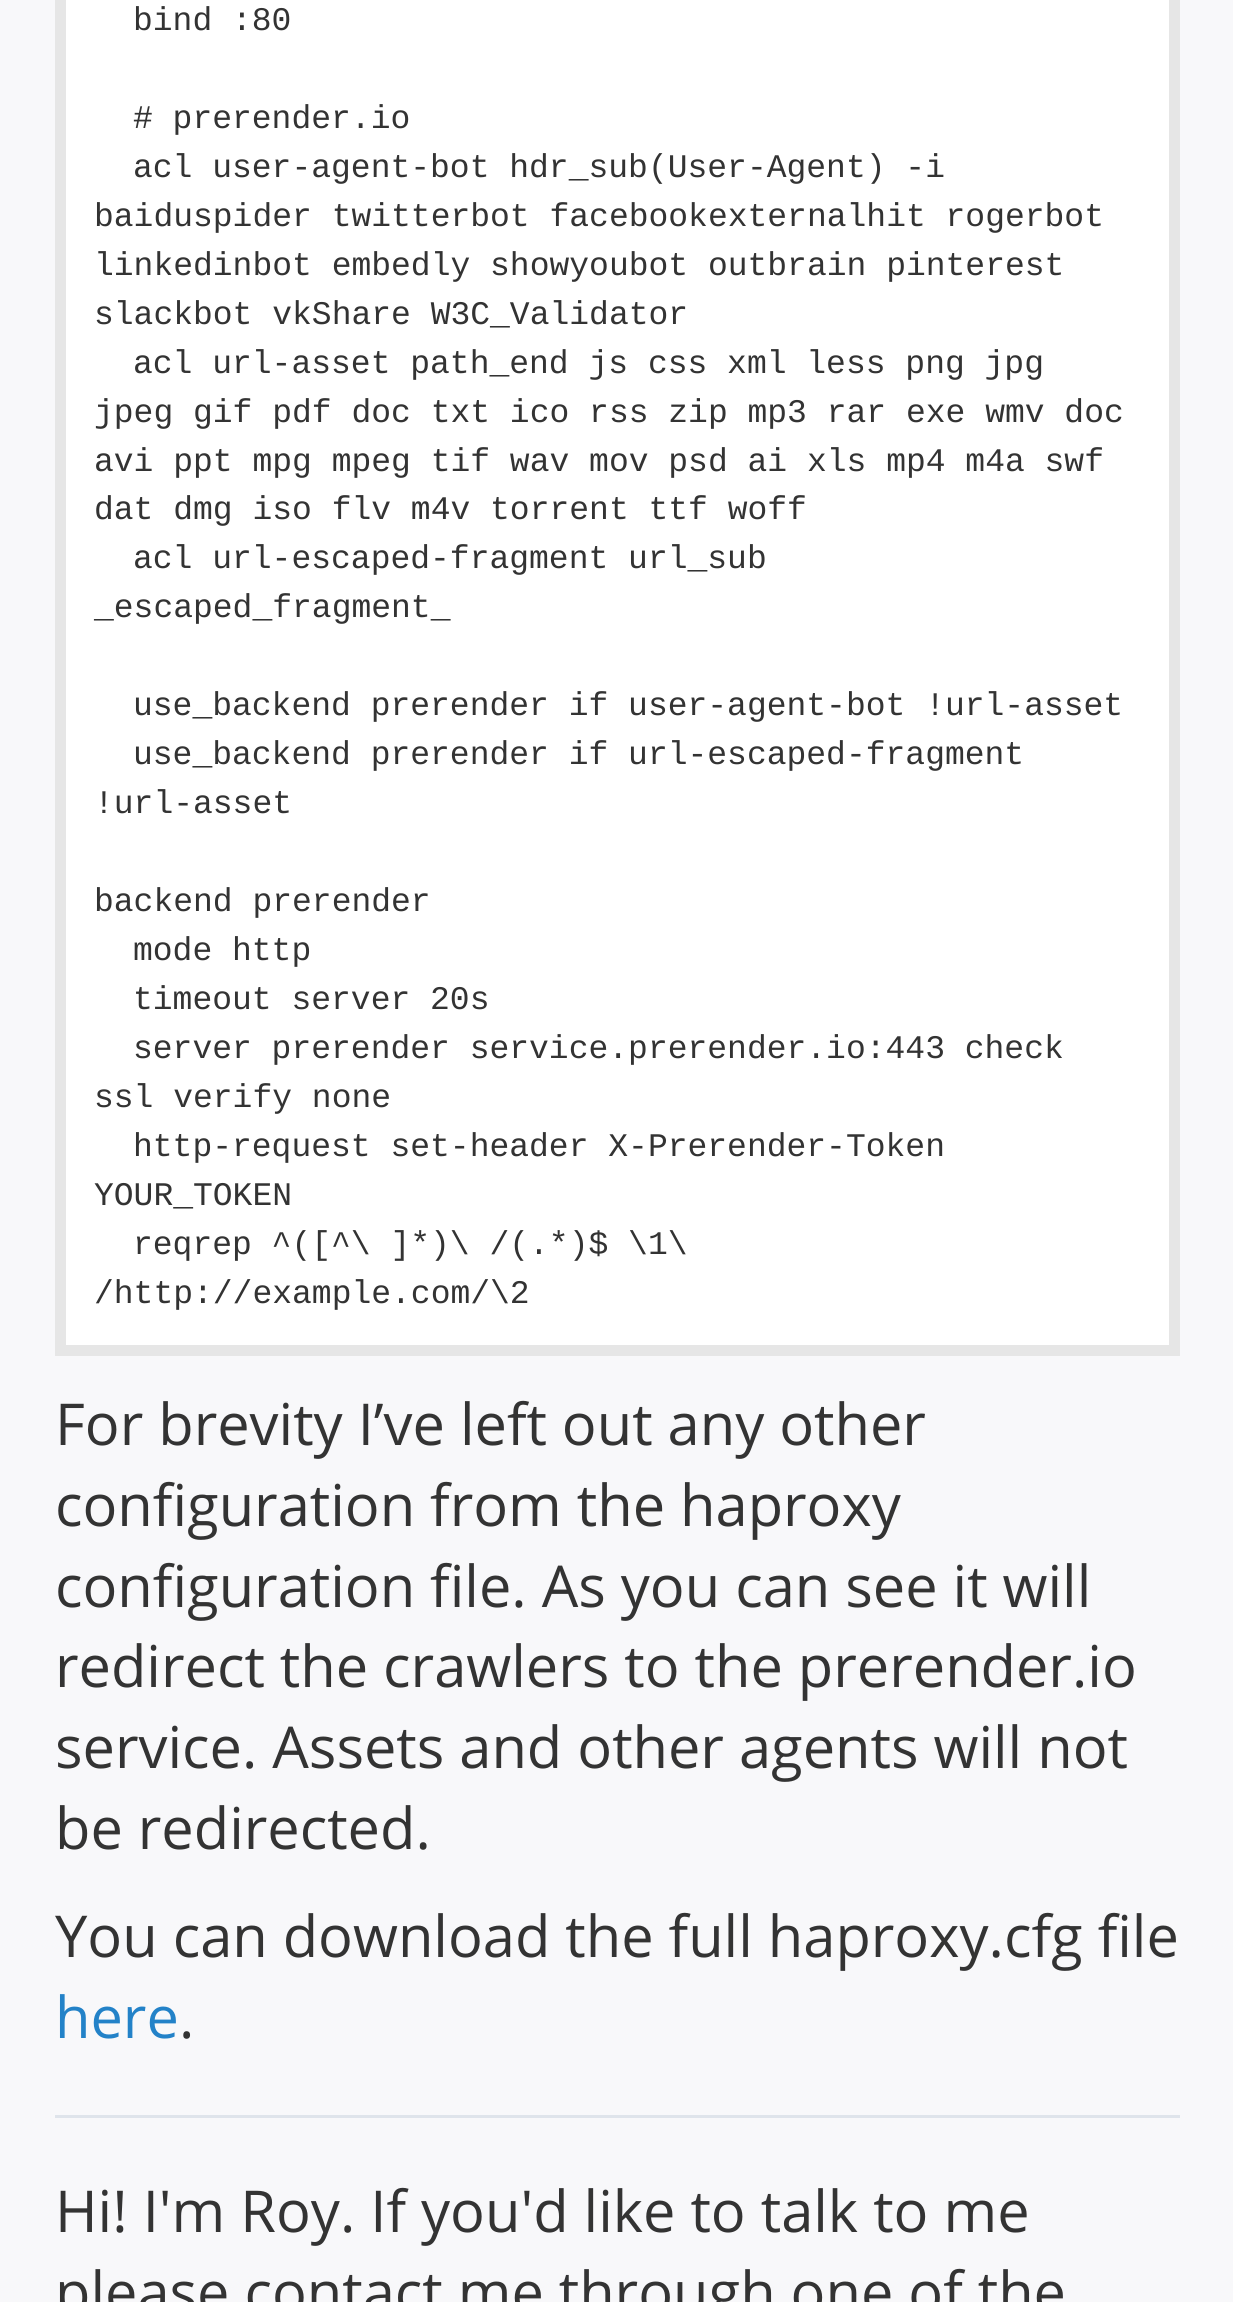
import math
import cairo


def draw(ctx):
	ctx.set_source_rgb(0.969, 0.969, 0.98)
	ctx.paint()
	ctx.set_source_rgb(1, 1, 1)
	ctx.rectangle(60.5, -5.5, 1114, 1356)
	ctx.fill_preserve()
	ctx.set_source_rgb(0.902, 0.902, 0.902)
	ctx.set_line_width(11)
	ctx.stroke()
	ctx.select_font_face('Liberation Mono')
	ctx.set_font_size(33)
	ctx.set_source_rgb(0.2, 0.2, 0.2)
	for x, y, s in [
		(133, 30, 'bind :80'),
		(133, 128, '# prerender.io'),
		(133, 177, 'acl user-agent-bot hdr_sub(User-Agent) -i'),
		(94, 226, 'baiduspider twitterbot facebookexternalhit rogerbot'),
		(94, 275, 'linkedinbot embedly showyoubot outbrain pinterest'),
		(94, 324, 'slackbot vkShare W3C_Validator'),
		(133, 373, 'acl url-asset path_end js css xml less png jpg'),
		(94, 422, 'jpeg gif pdf doc txt ico rss zip mp3 rar exe wmv doc'),
		(94, 471, 'avi ppt mpg mpeg tif wav mov psd ai xls mp4 m4a swf'),
		(94, 519, 'dat dmg iso flv m4v torrent ttf woff'),
		(133, 568, 'acl url-escaped-fragment url_sub'),
		(94, 617, '_escaped_fragment_'),
		(133, 715, 'use_backend prerender if user-agent-bot !url-asset'),
		(133, 764, 'use_backend prerender if url-escaped-fragment'),
		(94, 813, '!url-asset'),
		(94, 911, 'backend prerender'),
		(133, 960, 'mode http'),
		(133, 1009, 'timeout server 20s'),
		(133, 1058, 'server prerender service.prerender.io:443 check'),
		(94, 1107, 'ssl verify none'),
		(133, 1156, 'http-request set-header X-Prerender-Token'),
		(94, 1205, 'YOUR_TOKEN'),
		(133, 1254, 'reqrep ^([^\\ ]*)\\ /(.*)$ \\1\\'),
		(94, 1303, '/http://example.com/\\2'),
	]:
		ctx.move_to(x, y)
		ctx.show_text(s)
	ctx.select_font_face('Open Sans')
	ctx.set_font_size(57.75)
	for x, y, s in [
		(55, 1445, 'For brevity I’ve left out any other'),
		(55, 1526, 'configuration from the haproxy'),
		(55, 1607, 'configuration file. As you can see it will'),
		(55, 1687, 'redirect the crawlers to the prerender.io'),
		(55, 1768, 'service. Assets and other agents will not'),
		(55, 1849, 'be redirected.'),
		(55, 1957, 'You can download the full haproxy.cfg file'),
	]:
		ctx.move_to(x, y)
		ctx.show_text(s)
	ctx.set_source_rgb(0.137, 0.51, 0.784)
	ctx.move_to(55, 2038)
	ctx.show_text('here')
	ctx.set_source_rgb(0.2, 0.2, 0.2)
	ctx.move_to(179, 2038)
	ctx.show_text('.')
	ctx.set_source_rgb(0.875, 0.894, 0.918)
	ctx.rectangle(55, 2115, 1125, 3)
	ctx.fill()
	ctx.set_source_rgb(0.2, 0.2, 0.2)
	ctx.move_to(55, 2232)
	ctx.show_text('Hi! I\'m Roy. If you\'d like to talk to me')
	ctx.move_to(55, 2313)
	ctx.show_text('please contact me through one of the')


surface = cairo.ImageSurface(cairo.FORMAT_RGB24, 1233, 2302)
ctx = cairo.Context(surface)
options = cairo.FontOptions()
options.set_hint_metrics(cairo.HINT_METRICS_OFF)
options.set_hint_style(cairo.HINT_STYLE_NONE)
ctx.set_font_options(options)
ctx.set_miter_limit(4)
draw(ctx)
surface.write_to_png('image.png')
